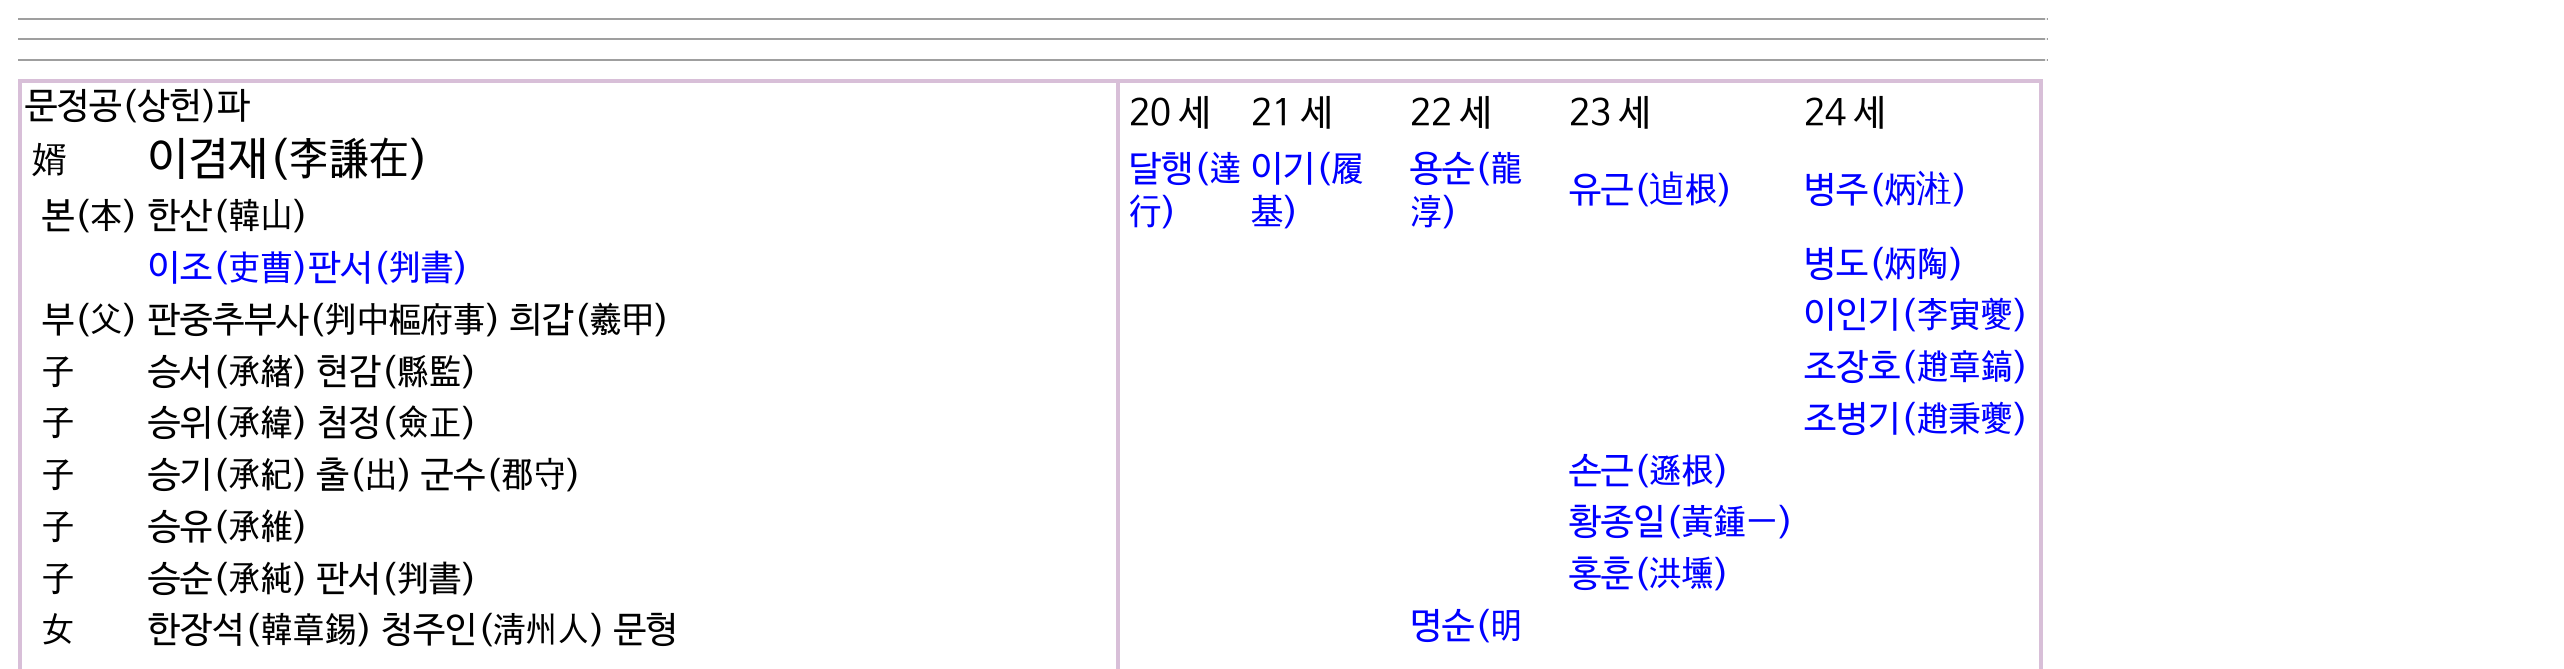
import math
import cairo


def draw(ctx):
	ctx.set_source_rgb(1, 1, 1)
	ctx.paint()
	ctx.set_source_rgb(0.624, 0.624, 0.624)
	ctx.rectangle(18, 18, 2030, 2)
	ctx.fill()
	ctx.set_source_rgb(0.933, 0.933, 0.933)
	ctx.rectangle(2045, 18, 2, 2)
	ctx.fill()
	ctx.set_source_rgb(0.624, 0.624, 0.624)
	ctx.rectangle(18, 38, 2030, 2)
	ctx.fill()
	ctx.set_source_rgb(0.933, 0.933, 0.933)
	ctx.rectangle(2045, 38, 2, 2)
	ctx.fill()
	ctx.set_source_rgb(0.624, 0.624, 0.624)
	ctx.rectangle(18, 59, 2030, 2)
	ctx.fill()
	ctx.set_source_rgb(0.933, 0.933, 0.933)
	ctx.rectangle(2045, 59, 2, 2)
	ctx.fill()
	ctx.rectangle(19, 80, 2023, 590)
	ctx.set_source_rgb(0.847, 0.749, 0.847)
	ctx.stroke()
	ctx.rectangle(21, 82, 1096, 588)
	ctx.stroke()
	ctx.select_font_face('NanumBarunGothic')
	ctx.set_font_size(36)
	ctx.set_source_rgb(0, 0, 0)
	ctx.move_to(25, 117)
	ctx.show_text('문정공(상헌)파')
	ctx.select_font_face('WenQuanYi Zen Hei Medium')
	ctx.move_to(32, 171)
	ctx.show_text('婿')
	ctx.select_font_face('NanumBarunGothic')
	ctx.set_font_size(45)
	ctx.move_to(148, 173)
	ctx.show_text('이겸재(李謙在)')
	ctx.set_font_size(36)
	ctx.move_to(42, 227)
	ctx.show_text('본(本)')
	ctx.move_to(148, 227)
	ctx.show_text('한산(韓山)')
	ctx.set_source_rgb(0, 0, 1)
	ctx.move_to(148, 279)
	ctx.show_text('이조(吏曹)판서(判書)')
	ctx.set_source_rgb(0, 0, 0)
	for x, y, s in [
		(42, 331, '부(父)'),
		(148, 331, '판중추부사(判中樞府事) 희갑(羲甲)'),
		(42, 383, '子'),
		(148, 383, '승서(承緖) 현감(縣監)'),
		(42, 434, '子'),
		(148, 434, '승위(承緯) 첨정(僉正)'),
		(42, 486, '子'),
		(148, 486, '승기(承紀) 출(出) 군수(郡守)'),
		(42, 538, '子'),
		(148, 538, '승유(承維)'),
		(42, 590, '子'),
		(148, 590, '승순(承純) 판서(判書)'),
		(42, 641, '女'),
		(148, 641, '한장석(韓章錫) 청주인(淸州人) 문형'),
	]:
		ctx.move_to(x, y)
		ctx.show_text(s)
	ctx.rectangle(1119, 82, 921, 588)
	ctx.set_source_rgb(0.847, 0.749, 0.847)
	ctx.stroke()
	ctx.set_source_rgb(0, 0, 0)
	for x, y, s in [
		(1129, 124, '20 세'),
		(1251, 124, '21 세'),
		(1410, 124, '22 세'),
		(1569, 124, '23 세'),
		(1804, 124, '24 세'),
	]:
		ctx.move_to(x, y)
		ctx.show_text(s)
	ctx.set_source_rgb(0, 0, 1)
	for x, y, s in [
		(1129, 180, '달행(達'),
		(1129, 223, '行)'),
		(1251, 180, '이기(履'),
		(1251, 223, '基)'),
		(1410, 180, '용순(龍'),
		(1410, 223, '淳)'),
		(1569, 201, '유근('),
	]:
		ctx.move_to(x, y)
		ctx.show_text(s)
	ctx.select_font_face('WenQuanYi Zen Hei Medium')
	ctx.move_to(1649, 201)
	ctx.show_text('逌')
	ctx.select_font_face('NanumBarunGothic')
	ctx.move_to(1685, 201)
	ctx.show_text('根)')
	ctx.move_to(1804, 201)
	ctx.show_text('병주(炳')
	ctx.select_font_face('WenQuanYi Zen Hei Medium')
	ctx.move_to(1916, 201)
	ctx.show_text('㴤')
	ctx.select_font_face('NanumBarunGothic')
	for x, y, s in [
		(1952, 201, ')'),
		(1804, 275, '병도(炳陶)'),
		(1804, 326, '이인기(李寅夔)'),
		(1804, 378, '조장호(趙章鎬)'),
		(1804, 430, '조병기(趙秉夔)'),
		(1569, 482, '손근(遜根)'),
		(1569, 533, '황종일(黃鍾一)'),
		(1569, 585, '홍훈(洪壎)'),
		(1410, 637, '명순(明'),
	]:
		ctx.move_to(x, y)
		ctx.show_text(s)


surface = cairo.ImageSurface(cairo.FORMAT_RGB24, 2564, 669)
ctx = cairo.Context(surface)
options = cairo.FontOptions()
options.set_hint_metrics(cairo.HINT_METRICS_OFF)
options.set_hint_style(cairo.HINT_STYLE_NONE)
ctx.set_font_options(options)
ctx.set_miter_limit(4)
draw(ctx)
surface.write_to_png('image.png')
